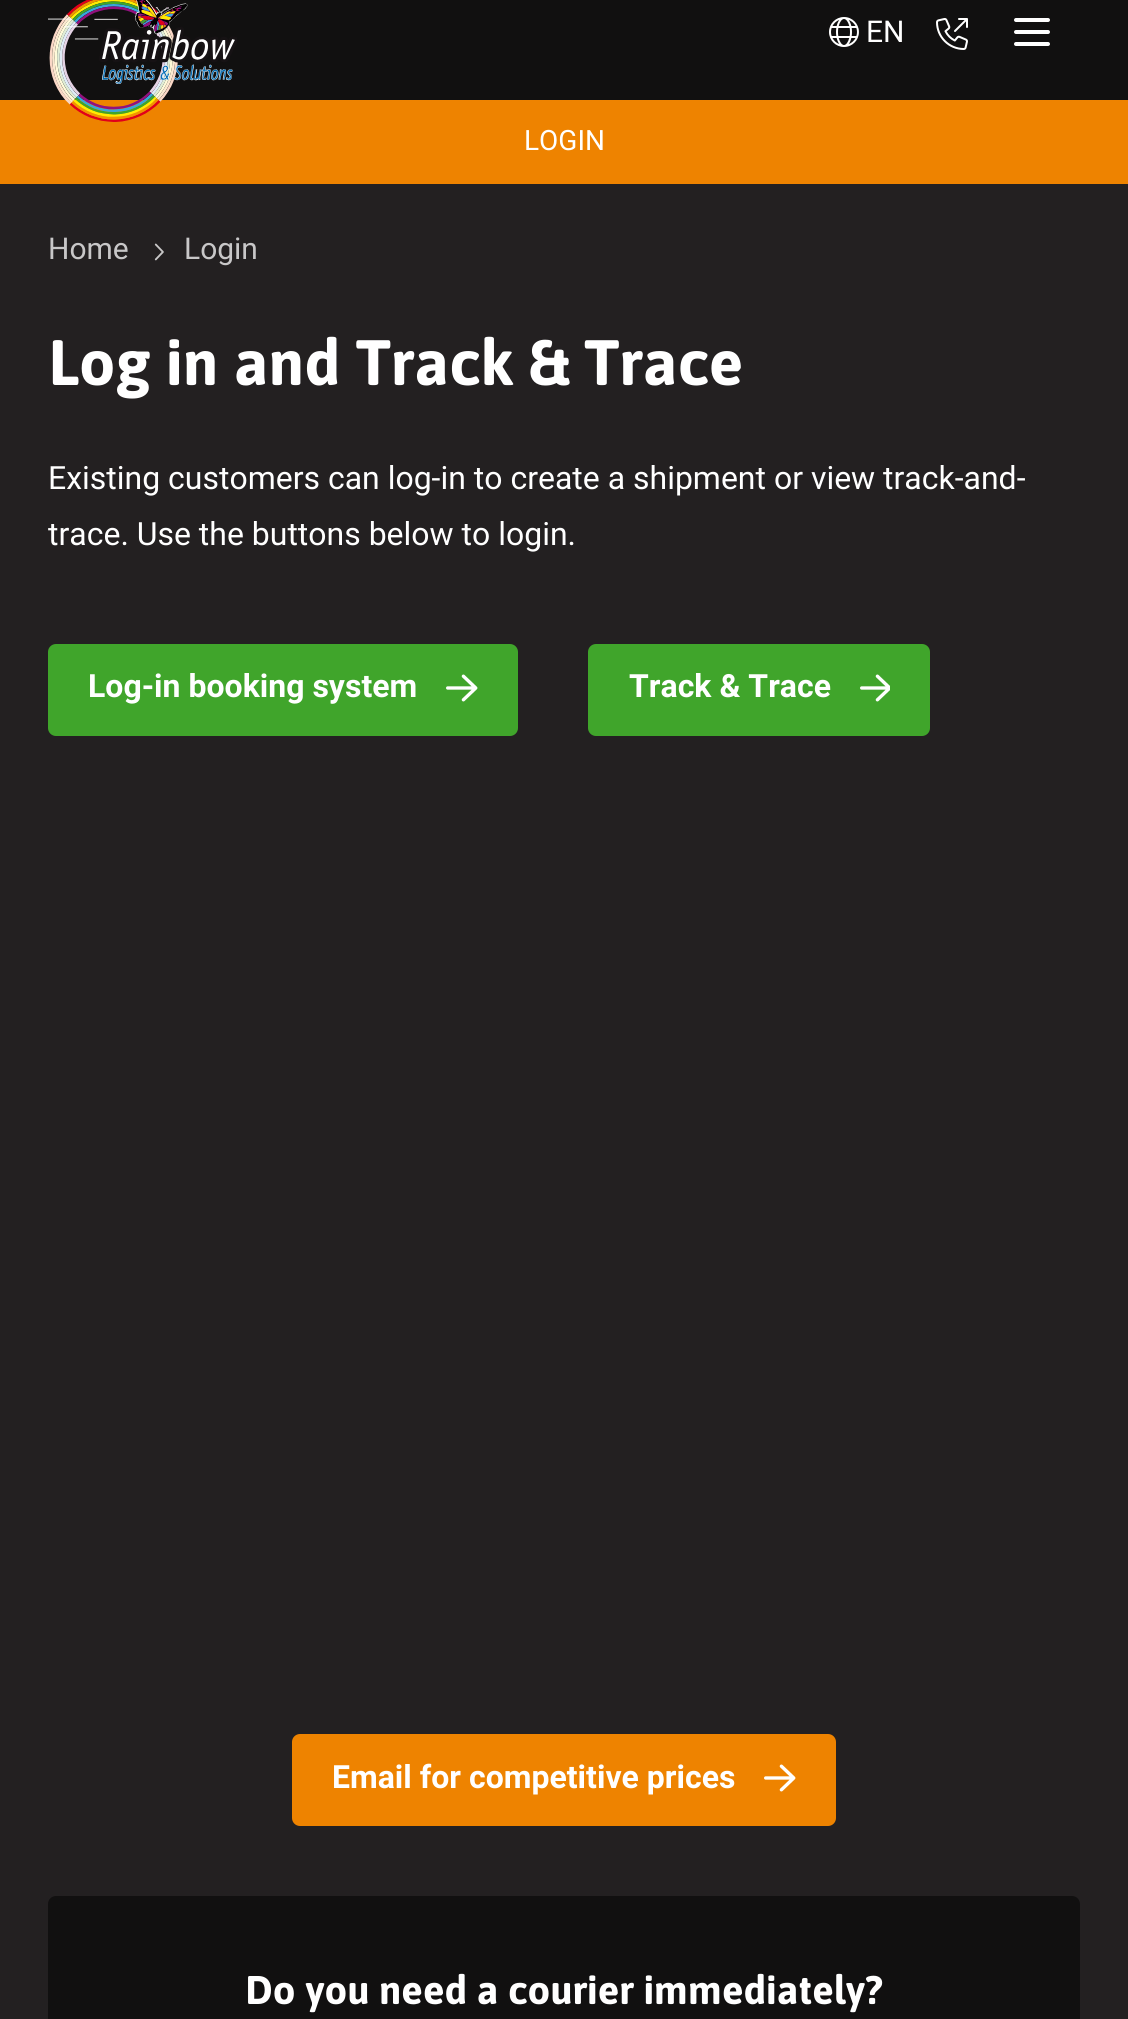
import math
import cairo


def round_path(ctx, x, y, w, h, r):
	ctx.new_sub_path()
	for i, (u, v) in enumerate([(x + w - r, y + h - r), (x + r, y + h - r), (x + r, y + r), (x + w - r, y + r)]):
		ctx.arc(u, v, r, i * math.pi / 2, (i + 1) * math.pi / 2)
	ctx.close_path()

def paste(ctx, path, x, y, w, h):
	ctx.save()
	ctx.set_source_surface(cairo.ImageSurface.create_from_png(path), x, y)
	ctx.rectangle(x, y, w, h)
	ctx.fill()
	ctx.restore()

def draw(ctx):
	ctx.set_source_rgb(0.137, 0.125, 0.129)
	ctx.paint()
	ctx.set_source_rgb(0.067, 0.063, 0.063)
	ctx.rectangle(0, 0, 1128, 100)
	ctx.fill()
	ctx.set_source_rgb(0.933, 0.514, 0)
	ctx.rectangle(0, 100, 1128, 84)
	ctx.fill()
	paste(ctx, 'media/1.png', 48, 0, 189, 122)
	paste(ctx, 'media/2.png', 829, 17, 30, 30)
	ctx.select_font_face('Roboto')
	ctx.set_font_size(30)
	ctx.set_source_rgb(1, 1, 1)
	ctx.move_to(866, 42)
	ctx.show_text('EN')
	paste(ctx, 'media/3.png', 936, 18, 32, 32)
	round_path(ctx, 1014, 30, 36, 4, 2)
	ctx.fill()
	round_path(ctx, 1014, 18, 36, 4, 2)
	ctx.fill()
	round_path(ctx, 1014, 42, 36, 4, 2)
	ctx.fill()
	ctx.set_font_size(28)
	ctx.move_to(524, 150)
	ctx.show_text('LOGIN')
	ctx.set_font_size(30)
	ctx.set_source_rgb(0.784, 0.78, 0.784)
	ctx.move_to(48, 259)
	ctx.show_text('Home')
	paste(ctx, 'media/4.png', 154, 243, 10, 18)
	ctx.move_to(184, 259)
	ctx.show_text('Login')
	ctx.select_font_face('Asap', cairo.FONT_SLANT_NORMAL, cairo.FONT_WEIGHT_BOLD)
	ctx.set_font_size(64)
	ctx.set_source_rgb(1, 1, 1)
	ctx.move_to(48, 385)
	ctx.show_text('Log in and Track & Trace')
	ctx.select_font_face('Roboto')
	ctx.set_font_size(32)
	ctx.move_to(48, 489)
	ctx.show_text('Existing customers can log-in to create a shipment or view track-and-')
	ctx.move_to(48, 545)
	ctx.show_text('trace. Use the buttons below to login.')
	ctx.set_source_rgb(0.251, 0.647, 0.169)
	round_path(ctx, 48, 644, 470, 92, 8)
	ctx.fill()
	ctx.select_font_face('Roboto', cairo.FONT_SLANT_NORMAL, cairo.FONT_WEIGHT_BOLD)
	ctx.set_source_rgb(1, 1, 1)
	ctx.move_to(88, 697)
	ctx.show_text('Log-in booking system')
	paste(ctx, 'media/5.png', 446, 674, 32, 28)
	ctx.set_source_rgb(0.251, 0.647, 0.169)
	round_path(ctx, 588, 644, 342, 92, 8)
	ctx.fill()
	ctx.set_source_rgb(1, 1, 1)
	ctx.move_to(629, 697)
	ctx.show_text('Track & Trace')
	paste(ctx, 'media/6.png', 860, 674, 30, 28)
	ctx.set_source_rgb(0.933, 0.514, 0)
	round_path(ctx, 292, 1734, 544, 92, 8)
	ctx.fill()
	ctx.set_source_rgb(1, 1, 1)
	ctx.move_to(332, 1788)
	ctx.show_text('Email for competitive prices')
	paste(ctx, 'media/7.png', 764, 1764, 32, 28)
	ctx.set_source_rgb(0.067, 0.063, 0.063)
	round_path(ctx, 48, 1896, 1032, 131, 8)
	ctx.fill()
	ctx.select_font_face('Asap', cairo.FONT_SLANT_NORMAL, cairo.FONT_WEIGHT_BOLD)
	ctx.set_font_size(40)
	ctx.set_source_rgb(1, 1, 1)
	ctx.move_to(245, 2004)
	ctx.show_text('Do you need a courier immediately?')


surface = cairo.ImageSurface(cairo.FORMAT_RGB24, 1128, 2019)
ctx = cairo.Context(surface)
options = cairo.FontOptions()
options.set_hint_metrics(cairo.HINT_METRICS_OFF)
options.set_hint_style(cairo.HINT_STYLE_NONE)
ctx.set_font_options(options)
ctx.set_miter_limit(4)
draw(ctx)
surface.write_to_png('image.png')
